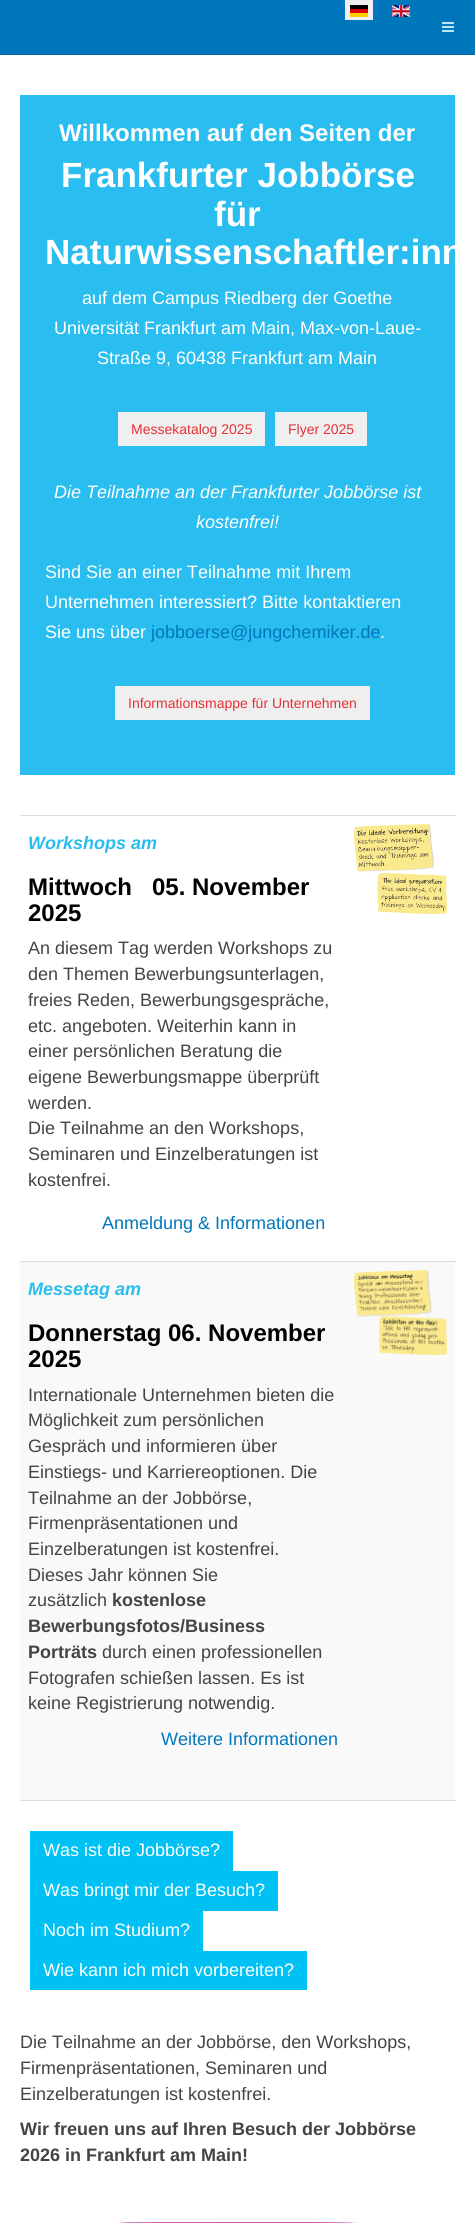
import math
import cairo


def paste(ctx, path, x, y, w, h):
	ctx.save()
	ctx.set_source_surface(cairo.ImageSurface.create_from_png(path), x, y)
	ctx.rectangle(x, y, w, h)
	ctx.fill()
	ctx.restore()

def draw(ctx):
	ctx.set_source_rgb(1, 1, 1)
	ctx.paint()
	ctx.set_source_rgb(0, 0.467, 0.733)
	ctx.rectangle(0, 0, 475, 54)
	ctx.fill()
	ctx.set_source_rgb(0, 0.404, 0.635)
	ctx.rectangle(0, 54, 475, 1)
	ctx.fill()
	ctx.set_source_rgb(0.941, 0.941, 0.941)
	ctx.rectangle(345, 0, 28, 20)
	ctx.fill()
	paste(ctx, 'media/1.png', 350, 5, 18, 12)
	paste(ctx, 'media/2.png', 392, 5, 18, 12)
	paste(ctx, 'media/3.png', 442, 22, 12, 10)
	ctx.set_source_rgb(0.165, 0.741, 0.937)
	ctx.rectangle(20, 95, 435, 680)
	ctx.fill()
	ctx.select_font_face('Liberation Sans', cairo.FONT_SLANT_NORMAL, cairo.FONT_WEIGHT_BOLD)
	ctx.set_font_size(24)
	ctx.set_source_rgb(1, 1, 1)
	ctx.move_to(59, 141)
	ctx.show_text('Willkommen auf den Seiten der')
	ctx.set_font_size(35)
	for x, y, s in [
		(61, 187, 'Frankfurter Jobbörse'),
		(214, 226, 'für'),
		(45, 264, 'Naturwissenschaftler:inn'),
	]:
		ctx.move_to(x, y)
		ctx.show_text(s)
	ctx.select_font_face('Liberation Sans')
	ctx.set_font_size(18)
	for x, y, s in [
		(82, 304, 'auf dem Campus Riedberg der Goethe'),
		(54, 334, 'Universität Frankfurt am Main, Max-von-Laue-'),
		(97, 364, 'Straße 9, 60438 Frankfurt am Main'),
	]:
		ctx.move_to(x, y)
		ctx.show_text(s)
	ctx.set_source_rgb(0.937, 0.937, 0.937)
	ctx.rectangle(118, 412, 147, 34)
	ctx.fill()
	ctx.set_font_size(14)
	ctx.set_source_rgb(0.902, 0.192, 0.208)
	ctx.move_to(131, 434)
	ctx.show_text('Messekatalog 2025')
	ctx.set_source_rgb(0.937, 0.937, 0.937)
	ctx.rectangle(275, 412, 92, 34)
	ctx.fill()
	ctx.set_source_rgb(0.902, 0.192, 0.208)
	ctx.move_to(288, 434)
	ctx.show_text('Flyer 2025')
	ctx.select_font_face('Liberation Sans', cairo.FONT_SLANT_ITALIC)
	ctx.set_font_size(18)
	ctx.set_source_rgb(1, 1, 1)
	ctx.move_to(54, 498)
	ctx.show_text('Die Teilnahme an der Frankfurter Jobbörse ist')
	ctx.move_to(196, 528)
	ctx.show_text('kostenfrei!')
	ctx.select_font_face('Liberation Sans')
	for x, y, s in [
		(45, 578, 'Sind Sie an einer Teilnahme mit Ihrem'),
		(45, 608, 'Unternehmen interessiert? Bitte kontaktieren'),
		(45, 638, 'Sie uns über'),
	]:
		ctx.move_to(x, y)
		ctx.show_text(s)
	ctx.set_source_rgb(0, 0.467, 0.733)
	ctx.move_to(151, 638)
	ctx.show_text('jobboerse@jungchemiker.de')
	ctx.set_source_rgb(1, 1, 1)
	ctx.move_to(380, 638)
	ctx.show_text('.')
	ctx.set_source_rgb(0.937, 0.937, 0.937)
	ctx.rectangle(115, 686, 255, 34)
	ctx.fill()
	ctx.set_font_size(14)
	ctx.set_source_rgb(0.902, 0.192, 0.208)
	ctx.move_to(128, 708)
	ctx.show_text('Informationsmappe für Unternehmen')
	ctx.set_source_rgb(0.867, 0.867, 0.867)
	ctx.rectangle(20, 815, 436, 1)
	ctx.fill()
	paste(ctx, 'media/4.png', 354, 824, 93, 90)
	ctx.select_font_face('Liberation Sans', cairo.FONT_SLANT_ITALIC, cairo.FONT_WEIGHT_BOLD)
	ctx.set_font_size(18)
	ctx.set_source_rgb(0.165, 0.741, 0.937)
	ctx.move_to(28, 849)
	ctx.show_text('Workshops am')
	ctx.select_font_face('Liberation Sans', cairo.FONT_SLANT_NORMAL, cairo.FONT_WEIGHT_BOLD)
	ctx.set_font_size(24)
	ctx.set_source_rgb(0, 0, 0)
	for x, y, s in [
		(28, 895, 'Mittwoch'),
		(152, 895, '05. November'),
		(28, 921, '2025'),
	]:
		ctx.move_to(x, y)
		ctx.show_text(s)
	ctx.select_font_face('Liberation Sans')
	ctx.set_font_size(18)
	ctx.set_source_rgb(0.267, 0.267, 0.267)
	for x, y, s in [
		(28, 954, 'An diesem Tag werden Workshops zu'),
		(28, 980, 'den Themen Bewerbungsunterlagen,'),
		(28, 1006, 'freies Reden, Bewerbungsgespräche,'),
		(28, 1032, 'etc. angeboten. Weiterhin kann in'),
		(28, 1057, 'einer persönlichen Beratung die'),
		(28, 1083, 'eigene Bewerbungsmappe überprüft'),
		(28, 1109, 'werden.'),
		(28, 1134, 'Die Teilnahme an den Workshops,'),
		(28, 1160, 'Seminaren und Einzelberatungen ist'),
		(28, 1186, 'kostenfrei.'),
	]:
		ctx.move_to(x, y)
		ctx.show_text(s)
	ctx.set_source_rgb(0, 0.467, 0.733)
	ctx.move_to(102, 1229)
	ctx.show_text('Anmeldung & Informationen')
	ctx.set_source_rgb(0.976, 0.976, 0.976)
	ctx.rectangle(20, 1262, 435, 538)
	ctx.fill()
	ctx.set_source_rgb(0.867, 0.867, 0.867)
	ctx.rectangle(20, 1261, 436, 1)
	ctx.rectangle(20, 1800, 436, 1)
	ctx.fill()
	paste(ctx, 'media/5.png', 354, 1270, 93, 85)
	ctx.select_font_face('Liberation Sans', cairo.FONT_SLANT_ITALIC, cairo.FONT_WEIGHT_BOLD)
	ctx.set_source_rgb(0.165, 0.741, 0.937)
	ctx.move_to(28, 1295)
	ctx.show_text('Messetag am')
	ctx.select_font_face('Liberation Sans', cairo.FONT_SLANT_NORMAL, cairo.FONT_WEIGHT_BOLD)
	ctx.set_font_size(24)
	ctx.set_source_rgb(0, 0, 0)
	ctx.move_to(28, 1341)
	ctx.show_text('Donnerstag 06. November')
	ctx.move_to(28, 1367)
	ctx.show_text('2025')
	ctx.select_font_face('Liberation Sans')
	ctx.set_font_size(18)
	ctx.set_source_rgb(0.267, 0.267, 0.267)
	for x, y, s in [
		(28, 1401, 'Internationale Unternehmen bieten die'),
		(28, 1426, 'Möglichkeit zum persönlichen'),
		(28, 1452, 'Gespräch und informieren über'),
		(28, 1478, 'Einstiegs- und Karriereoptionen. Die'),
		(28, 1504, 'Teilnahme an der Jobbörse,'),
		(28, 1529, 'Firmenpräsentationen und'),
		(28, 1555, 'Einzelberatungen ist kostenfrei.'),
		(28, 1581, 'Dieses Jahr können Sie'),
		(28, 1606, 'zusätzlich'),
	]:
		ctx.move_to(x, y)
		ctx.show_text(s)
	ctx.select_font_face('Liberation Sans', cairo.FONT_SLANT_NORMAL, cairo.FONT_WEIGHT_BOLD)
	for x, y, s in [
		(112, 1606, 'kostenlose'),
		(28, 1632, 'Bewerbungsfotos/Business'),
		(28, 1658, 'Porträts'),
	]:
		ctx.move_to(x, y)
		ctx.show_text(s)
	ctx.select_font_face('Liberation Sans')
	for x, y, s in [
		(102, 1658, 'durch einen professionellen'),
		(28, 1684, 'Fotografen schießen lassen. Es ist'),
		(28, 1709, 'keine Registrierung notwendig.'),
	]:
		ctx.move_to(x, y)
		ctx.show_text(s)
	ctx.set_source_rgb(0, 0.467, 0.733)
	ctx.move_to(161, 1745)
	ctx.show_text('Weitere Informationen')
	ctx.set_source_rgb(0, 0.757, 0.953)
	ctx.rectangle(30, 1831, 203, 40)
	ctx.fill()
	ctx.set_source_rgb(1, 1, 1)
	ctx.move_to(43, 1856)
	ctx.show_text('Was ist die Jobbörse?')
	ctx.set_source_rgb(0, 0.757, 0.953)
	ctx.rectangle(30, 1871, 248, 40)
	ctx.fill()
	ctx.set_source_rgb(1, 1, 1)
	ctx.move_to(43, 1896)
	ctx.show_text('Was bringt mir der Besuch?')
	ctx.set_source_rgb(0, 0.757, 0.953)
	ctx.rectangle(30, 1911, 173, 40)
	ctx.fill()
	ctx.set_source_rgb(1, 1, 1)
	ctx.move_to(43, 1936)
	ctx.show_text('Noch im Studium?')
	ctx.set_source_rgb(0, 0.757, 0.953)
	ctx.rectangle(30, 1951, 277, 39)
	ctx.fill()
	ctx.set_source_rgb(1, 1, 1)
	ctx.move_to(43, 1976)
	ctx.show_text('Wie kann ich mich vorbereiten?')
	ctx.set_source_rgb(0.267, 0.267, 0.267)
	for x, y, s in [
		(20, 2048, 'Die Teilnahme an der Jobbörse, den Workshops,'),
		(20, 2074, 'Firmenpräsentationen, Seminaren und'),
		(20, 2100, 'Einzelberatungen ist kostenfrei.'),
	]:
		ctx.move_to(x, y)
		ctx.show_text(s)
	ctx.select_font_face('Liberation Sans', cairo.FONT_SLANT_NORMAL, cairo.FONT_WEIGHT_BOLD)
	ctx.move_to(20, 2135)
	ctx.show_text('Wir freuen uns auf Ihren Besuch der Jobbörse')
	ctx.move_to(20, 2161)
	ctx.show_text('2026 in Frankfurt am Main!')
	paste(ctx, 'media/6.png', 119, 2222, 237, 1)


surface = cairo.ImageSurface(cairo.FORMAT_RGB24, 475, 2223)
ctx = cairo.Context(surface)
options = cairo.FontOptions()
options.set_hint_metrics(cairo.HINT_METRICS_OFF)
options.set_hint_style(cairo.HINT_STYLE_NONE)
ctx.set_font_options(options)
ctx.set_miter_limit(4)
draw(ctx)
surface.write_to_png('image.png')
